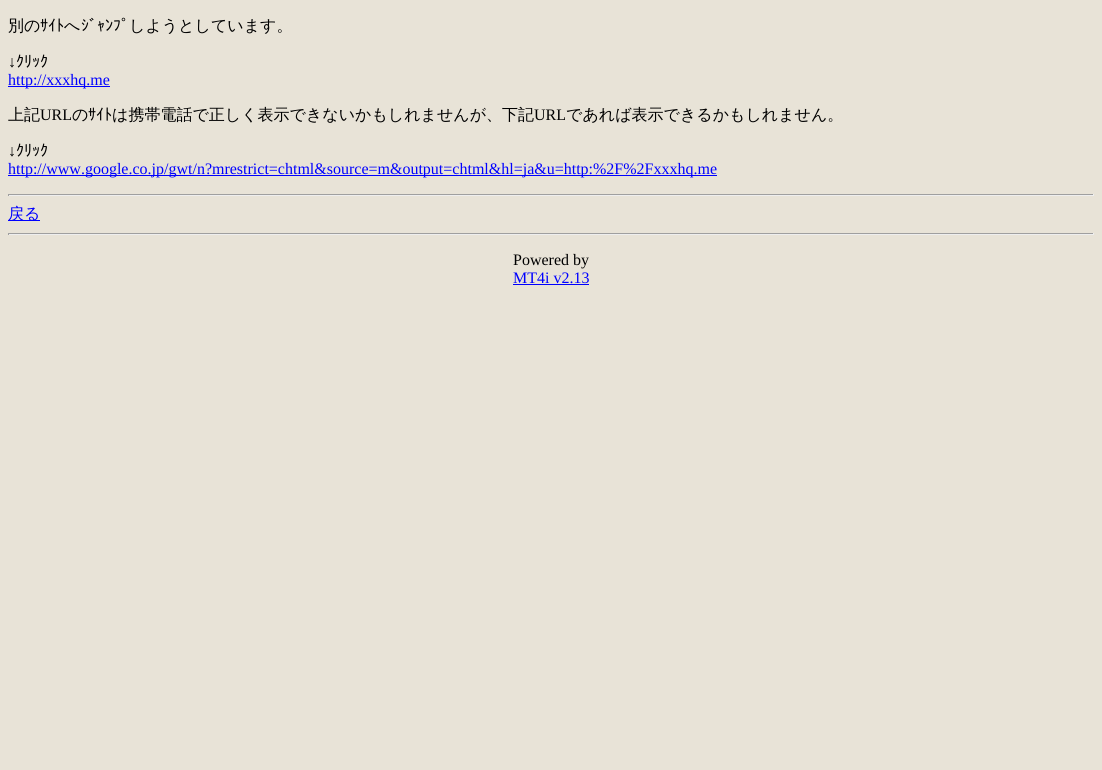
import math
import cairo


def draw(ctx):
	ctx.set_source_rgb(0.91, 0.89, 0.843)
	ctx.paint()
	ctx.select_font_face('WenQuanYi Zen Hei Medium')
	ctx.set_font_size(16)
	ctx.set_source_rgb(0, 0, 0)
	ctx.move_to(8, 31)
	ctx.show_text('別の')
	ctx.select_font_face('IPAGothic')
	ctx.move_to(40, 31)
	ctx.show_text('ｻｲﾄ')
	ctx.select_font_face('WenQuanYi Zen Hei Medium')
	ctx.move_to(64, 31)
	ctx.show_text('へ')
	ctx.select_font_face('IPAGothic')
	ctx.move_to(81, 31)
	ctx.show_text('ｼﾞｬﾝﾌﾟ')
	ctx.select_font_face('WenQuanYi Zen Hei Medium')
	ctx.move_to(129, 31)
	ctx.show_text('しようとしています。')
	ctx.select_font_face('Liberation Serif')
	ctx.move_to(8, 67)
	ctx.show_text('↓')
	ctx.select_font_face('IPAGothic')
	ctx.move_to(16, 67)
	ctx.show_text('ｸﾘｯｸ')
	ctx.set_source_rgb(0, 0, 1)
	ctx.rectangle(8, 86, 102, 1)
	ctx.fill()
	ctx.select_font_face('Liberation Serif')
	ctx.move_to(8, 85)
	ctx.show_text('http://xxxhq.me')
	ctx.select_font_face('WenQuanYi Zen Hei Medium')
	ctx.set_source_rgb(0, 0, 0)
	ctx.move_to(8, 120)
	ctx.show_text('上記')
	ctx.select_font_face('Liberation Serif')
	ctx.move_to(40, 120)
	ctx.show_text('URL')
	ctx.select_font_face('WenQuanYi Zen Hei Medium')
	ctx.move_to(72, 120)
	ctx.show_text('の')
	ctx.select_font_face('IPAGothic')
	ctx.move_to(88, 120)
	ctx.show_text('ｻｲﾄ')
	ctx.select_font_face('WenQuanYi Zen Hei Medium')
	ctx.move_to(112, 120)
	ctx.show_text('は携帯電話で正しく表示できないかもしれませんが、下記')
	ctx.select_font_face('Liberation Serif')
	ctx.move_to(534, 120)
	ctx.show_text('URL')
	ctx.select_font_face('WenQuanYi Zen Hei Medium')
	ctx.move_to(566, 120)
	ctx.show_text('であれば表示できるかもしれません。')
	ctx.select_font_face('Liberation Serif')
	ctx.move_to(8, 156)
	ctx.show_text('↓')
	ctx.select_font_face('IPAGothic')
	ctx.move_to(16, 156)
	ctx.show_text('ｸﾘｯｸ')
	ctx.set_source_rgb(0, 0, 1)
	ctx.rectangle(8, 175, 709, 1)
	ctx.fill()
	ctx.select_font_face('Liberation Serif')
	ctx.move_to(8, 174)
	ctx.show_text('http://www.google.co.jp/gwt/n?mrestrict=chtml&source=m&output=chtml&hl=ja&u=http:%2F%2Fxxxhq.me')
	ctx.set_source_rgb(0.624, 0.624, 0.624)
	ctx.rectangle(8, 194, 1086, 1)
	ctx.fill()
	ctx.set_source_rgb(0.933, 0.933, 0.933)
	ctx.rectangle(1093, 194, 1, 2)
	ctx.rectangle(8, 195, 1086, 1)
	ctx.fill()
	ctx.set_source_rgb(0.624, 0.624, 0.624)
	ctx.rectangle(8, 194, 1, 2)
	ctx.fill()
	ctx.set_source_rgb(0, 0, 1)
	ctx.rectangle(8, 220, 32, 1)
	ctx.fill()
	ctx.select_font_face('WenQuanYi Zen Hei Medium')
	ctx.move_to(8, 219)
	ctx.show_text('戻る')
	ctx.set_source_rgb(0.624, 0.624, 0.624)
	ctx.rectangle(8, 233, 1086, 1)
	ctx.fill()
	ctx.set_source_rgb(0.933, 0.933, 0.933)
	ctx.rectangle(1093, 233, 1, 2)
	ctx.rectangle(8, 234, 1086, 1)
	ctx.fill()
	ctx.set_source_rgb(0.624, 0.624, 0.624)
	ctx.rectangle(8, 233, 1, 2)
	ctx.fill()
	ctx.select_font_face('Liberation Serif')
	ctx.set_source_rgb(0, 0, 0)
	ctx.move_to(513, 265)
	ctx.show_text('Powered by')
	ctx.set_source_rgb(0, 0, 1)
	ctx.move_to(513, 283)
	ctx.show_text('MT4i v2.13')
	ctx.rectangle(513, 284, 76, 1)
	ctx.fill()


surface = cairo.ImageSurface(cairo.FORMAT_RGB24, 1102, 770)
ctx = cairo.Context(surface)
options = cairo.FontOptions()
options.set_hint_metrics(cairo.HINT_METRICS_OFF)
options.set_hint_style(cairo.HINT_STYLE_NONE)
ctx.set_font_options(options)
ctx.set_miter_limit(4)
draw(ctx)
surface.write_to_png('image.png')
